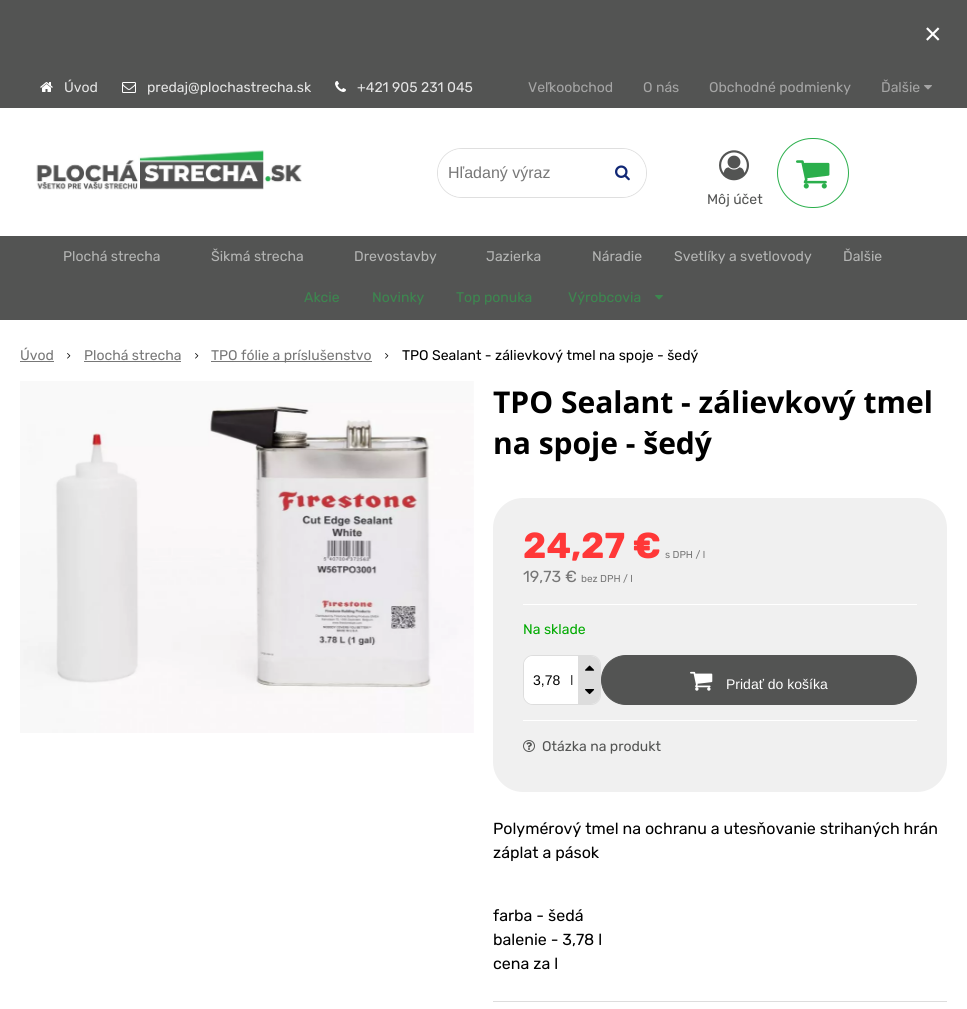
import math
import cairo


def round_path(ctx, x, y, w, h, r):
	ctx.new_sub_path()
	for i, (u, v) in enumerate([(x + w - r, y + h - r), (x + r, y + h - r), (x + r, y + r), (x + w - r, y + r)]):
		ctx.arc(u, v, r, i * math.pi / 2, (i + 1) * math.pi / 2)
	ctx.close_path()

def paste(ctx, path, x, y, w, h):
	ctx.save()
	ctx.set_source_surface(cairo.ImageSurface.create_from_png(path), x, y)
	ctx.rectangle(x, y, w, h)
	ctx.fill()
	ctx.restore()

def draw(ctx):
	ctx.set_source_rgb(1, 1, 1)
	ctx.paint()
	ctx.set_source_rgb(0.325, 0.329, 0.325)
	ctx.rectangle(0, 0, 967, 108)
	ctx.fill()
	ctx.select_font_face('Liberation Sans')
	ctx.set_font_size(30)
	ctx.set_source_rgb(1, 1, 1)
	ctx.move_to(924, 44)
	ctx.show_text('×')
	paste(ctx, 'media/1.png', 40, 82, 13, 10)
	ctx.select_font_face('Rubik')
	ctx.set_font_size(14)
	ctx.set_source_rgb(0.898, 0.898, 0.898)
	ctx.move_to(64, 92)
	ctx.show_text('Úvod')
	paste(ctx, 'media/2.png', 122, 82, 14, 11)
	ctx.move_to(147, 92)
	ctx.show_text('predaj@plochastrecha.sk')
	paste(ctx, 'media/3.png', 335, 81, 11, 11)
	ctx.move_to(357, 92)
	ctx.show_text('+421 905 231 045')
	paste(ctx, 'media/4.png', 36, 150, 266, 40)
	ctx.set_source_rgb(0.647, 0.647, 0.647)
	for x, y, s in [
		(528, 92, 'Veľkoobchod'),
		(643, 92, 'O nás'),
		(709, 92, 'Obchodné podmienky'),
		(881, 92, 'Ďalšie'),
	]:
		ctx.move_to(x, y)
		ctx.show_text(s)
	paste(ctx, 'media/5.png', 924, 85, 8, 5)
	round_path(ctx, 437.5, 148.5, 209, 49, 24.5)
	ctx.set_source_rgb(0.875, 0.875, 0.875)
	ctx.set_line_width(1)
	ctx.stroke()
	ctx.set_source_rgb(1, 1, 1)
	round_path(ctx, 438, 149, 208, 48, 24)
	ctx.fill()
	ctx.select_font_face('Liberation Sans')
	ctx.set_font_size(16)
	ctx.set_source_rgb(0.467, 0.467, 0.467)
	ctx.move_to(448, 178)
	ctx.show_text('Hľadaný výraz')
	paste(ctx, 'media/6.png', 615, 165, 15, 16)
	round_path(ctx, 777.5, 138.5, 71, 69, 34.5)
	ctx.set_source_rgb(0.169, 0.686, 0.298)
	ctx.stroke()
	paste(ctx, 'media/7.png', 796, 160, 34, 29)
	paste(ctx, 'media/8.png', 719, 150, 30, 31)
	ctx.select_font_face('Rubik')
	ctx.set_font_size(14)
	ctx.set_source_rgb(0.325, 0.329, 0.325)
	ctx.move_to(707, 204)
	ctx.show_text('Môj účet')
	ctx.rectangle(0, 236, 967, 84)
	ctx.fill()
	ctx.set_source_rgb(0.706, 0.71, 0.706)
	for x, y, s in [
		(63, 261, 'Plochá strecha'),
		(211, 261, 'Šikmá strecha'),
		(354, 261, 'Drevostavby'),
		(486, 261, 'Jazierka'),
		(592, 261, 'Náradie'),
		(674, 261, 'Svetlíky a svetlovody'),
		(843, 261, 'Ďalšie'),
	]:
		ctx.move_to(x, y)
		ctx.show_text(s)
	ctx.set_source_rgb(0.235, 0.529, 0.31)
	for x, y, s in [
		(304, 302, 'Akcie'),
		(372, 302, 'Novinky'),
		(456, 302, 'Top ponuka'),
		(568, 302, 'Výrobcovia'),
	]:
		ctx.move_to(x, y)
		ctx.show_text(s)
	paste(ctx, 'media/9.png', 655, 295, 8, 5)
	ctx.set_source_rgb(0.467, 0.467, 0.467)
	ctx.move_to(20, 360)
	ctx.show_text('Úvod')
	ctx.rectangle(20, 361, 34, 1)
	ctx.fill()
	paste(ctx, 'media/10.png', 67, 353, 4, 6)
	ctx.move_to(84, 360)
	ctx.show_text('Plochá strecha')
	ctx.rectangle(84, 361, 97, 1)
	ctx.fill()
	paste(ctx, 'media/10.png', 195, 353, 4, 6)
	ctx.rectangle(211, 361, 161, 1)
	ctx.fill()
	ctx.move_to(211, 360)
	ctx.show_text('TPO fólie a príslušenstvo')
	paste(ctx, 'media/10.png', 385, 353, 4, 6)
	ctx.set_source_rgb(0, 0, 0)
	ctx.move_to(402, 360)
	ctx.show_text('TPO Sealant - zálievkový tmel na spoje - šedý')
	paste(ctx, 'media/11.png', 20, 381, 454, 352)
	ctx.select_font_face('Open Sans', cairo.FONT_SLANT_NORMAL, cairo.FONT_WEIGHT_BOLD)
	ctx.set_font_size(30)
	ctx.move_to(493, 413)
	ctx.show_text('TPO Sealant - zálievkový tmel')
	ctx.move_to(493, 454)
	ctx.show_text('na spoje - šedý')
	ctx.set_source_rgb(0.941, 0.941, 0.941)
	round_path(ctx, 493, 498, 454, 294, 30)
	ctx.fill()
	ctx.set_source_rgb(1, 1, 1)
	ctx.rectangle(523, 604, 394, 1)
	ctx.fill()
	ctx.select_font_face('Rubik', cairo.FONT_SLANT_NORMAL, cairo.FONT_WEIGHT_BOLD)
	ctx.set_font_size(36)
	ctx.set_source_rgb(1, 0.22, 0.22)
	ctx.move_to(523, 558)
	ctx.show_text('24,27 €')
	ctx.select_font_face('Rubik')
	ctx.set_font_size(10)
	ctx.set_source_rgb(0.467, 0.467, 0.467)
	ctx.move_to(665, 558)
	ctx.show_text('s DPH / l')
	ctx.set_font_size(16)
	ctx.move_to(523, 582)
	ctx.show_text('19,73 €')
	ctx.set_font_size(10)
	ctx.move_to(581, 582)
	ctx.show_text('bez DPH / l')
	ctx.set_font_size(14)
	ctx.set_source_rgb(0, 0.667, 0)
	ctx.move_to(523, 634)
	ctx.show_text('Na sklade')
	ctx.set_source_rgb(1, 1, 1)
	round_path(ctx, 523.5, 655.5, 77, 49, 9.5)
	ctx.fill_preserve()
	ctx.set_source_rgb(0.867, 0.867, 0.867)
	ctx.stroke()
	ctx.set_source_rgb(1, 1, 1)
	ctx.new_path()
	ctx.move_to(533, 656)
	ctx.line_to(570, 656)
	ctx.line_to(570, 704)
	ctx.line_to(533, 704)
	ctx.curve_to(528, 704, 524, 700, 524, 695)
	ctx.line_to(524, 665)
	ctx.curve_to(524, 660, 528, 656, 533, 656)
	ctx.close_path()
	ctx.fill()
	ctx.select_font_face('Liberation Sans')
	ctx.set_source_rgb(0, 0, 0)
	ctx.move_to(533, 685)
	ctx.show_text('3,78')
	ctx.select_font_face('Rubik')
	ctx.set_source_rgb(0.267, 0.267, 0.267)
	ctx.move_to(570, 685)
	ctx.show_text('l')
	ctx.set_source_rgb(0.867, 0.867, 0.867)
	ctx.new_path()
	ctx.move_to(578, 656)
	ctx.line_to(591, 656)
	ctx.curve_to(596, 656, 600, 660, 600, 665)
	ctx.line_to(600, 680)
	ctx.line_to(578, 680)
	ctx.close_path()
	ctx.fill()
	paste(ctx, 'media/12.png', 585, 665, 10, 6)
	ctx.new_path()
	ctx.move_to(578, 680)
	ctx.line_to(600, 680)
	ctx.line_to(600, 695)
	ctx.curve_to(600, 700, 596, 704, 591, 704)
	ctx.line_to(578, 704)
	ctx.close_path()
	ctx.fill()
	paste(ctx, 'media/13.png', 585, 689, 10, 6)
	ctx.set_source_rgb(0.325, 0.329, 0.325)
	round_path(ctx, 601.5, 655.5, 315, 49, 24.5)
	ctx.fill_preserve()
	ctx.stroke()
	paste(ctx, 'media/14.png', 690, 671, 23, 20)
	ctx.select_font_face('Liberation Sans')
	ctx.set_source_rgb(1, 1, 1)
	ctx.move_to(726, 689)
	ctx.show_text('Pridať do košíka')
	ctx.rectangle(523, 720, 394, 1)
	ctx.fill()
	paste(ctx, 'media/15.png', 523, 740, 12, 12)
	ctx.select_font_face('Rubik')
	ctx.set_source_rgb(0.325, 0.329, 0.325)
	ctx.move_to(542, 751)
	ctx.show_text('Otázka na produkt')
	ctx.set_font_size(16)
	ctx.set_source_rgb(0, 0, 0)
	for x, y, s in [
		(493, 834, 'Polymérový tmel na ochranu a utesňovanie strihaných hrán'),
		(493, 858, 'záplat a pások'),
		(493, 921, 'farba - šedá'),
		(493, 945, 'balenie - 3,78 l'),
		(493, 969, 'cena za l'),
	]:
		ctx.move_to(x, y)
		ctx.show_text(s)
	ctx.set_source_rgb(0.867, 0.867, 0.867)
	ctx.rectangle(493, 1001, 454, 1)
	ctx.fill()


surface = cairo.ImageSurface(cairo.FORMAT_RGB24, 967, 1009)
ctx = cairo.Context(surface)
options = cairo.FontOptions()
options.set_hint_metrics(cairo.HINT_METRICS_OFF)
options.set_hint_style(cairo.HINT_STYLE_NONE)
ctx.set_font_options(options)
ctx.set_miter_limit(4)
draw(ctx)
surface.write_to_png('image.png')
